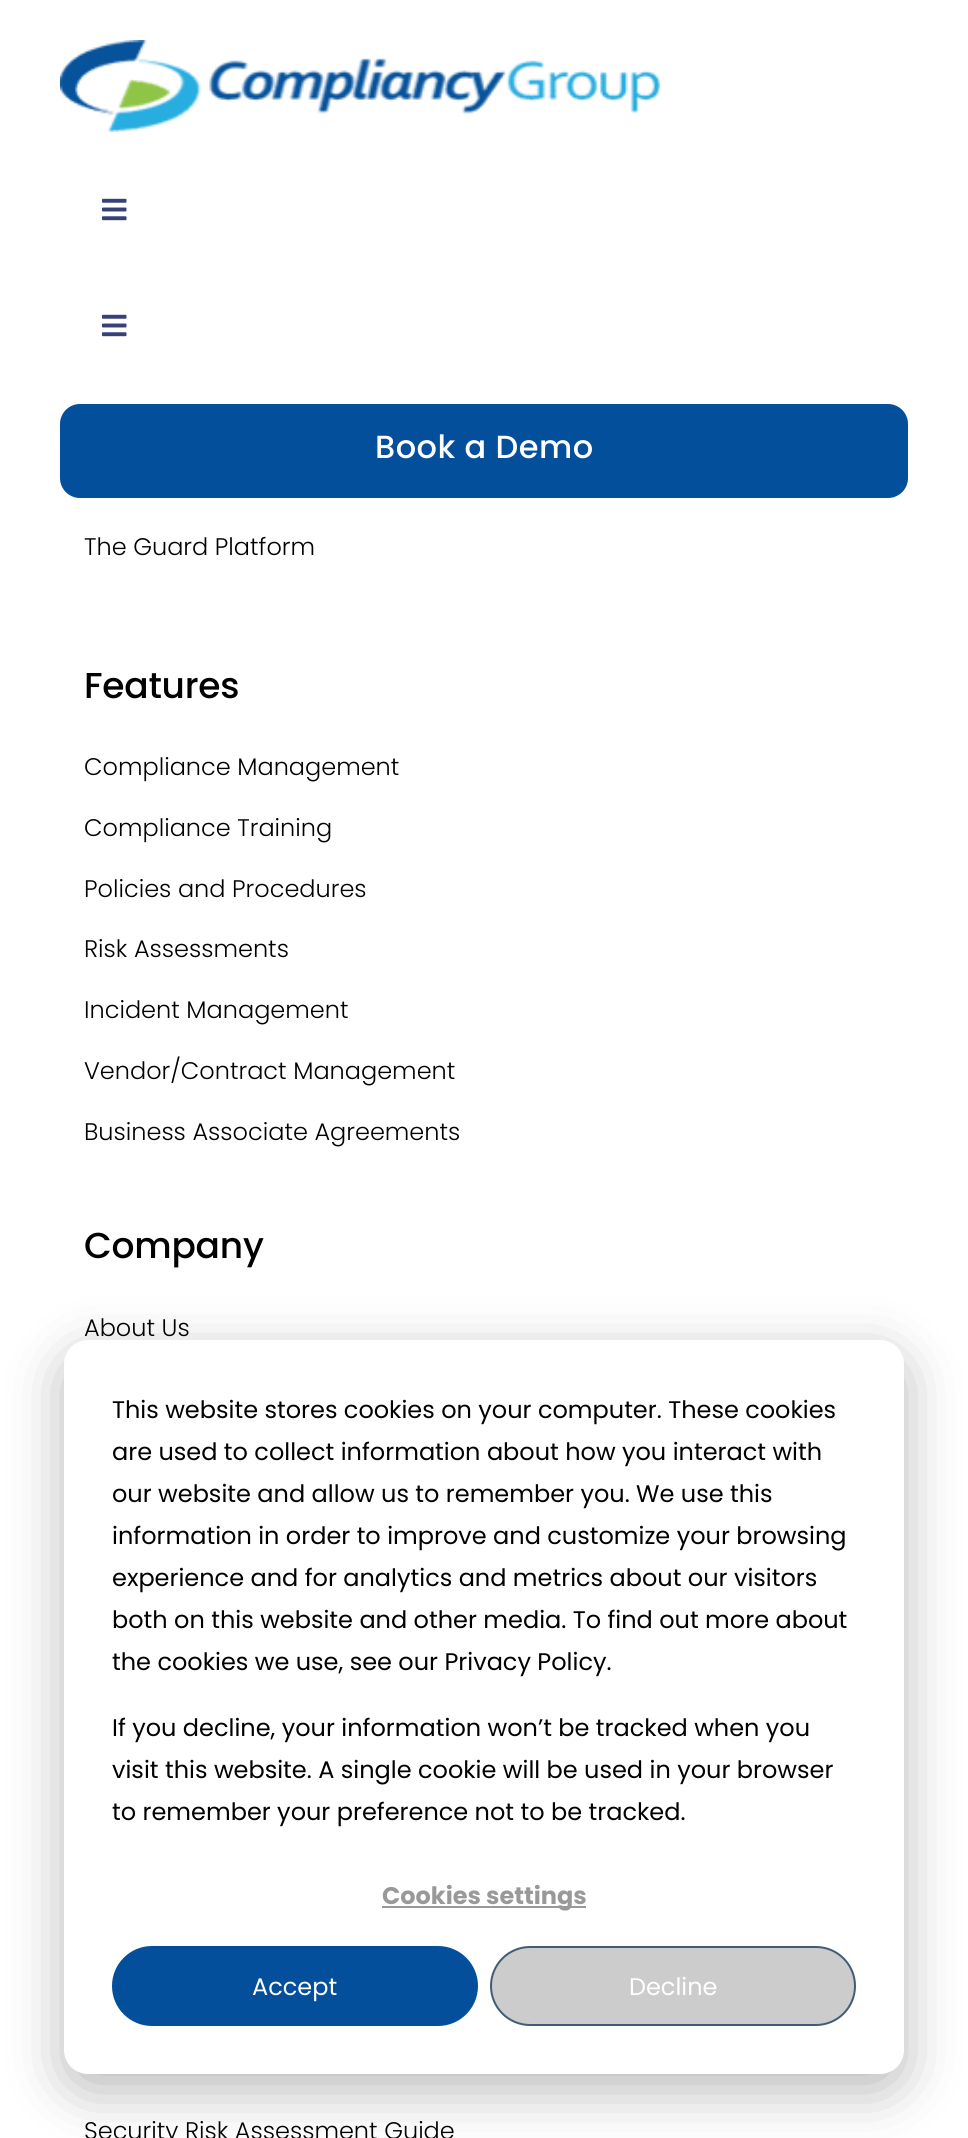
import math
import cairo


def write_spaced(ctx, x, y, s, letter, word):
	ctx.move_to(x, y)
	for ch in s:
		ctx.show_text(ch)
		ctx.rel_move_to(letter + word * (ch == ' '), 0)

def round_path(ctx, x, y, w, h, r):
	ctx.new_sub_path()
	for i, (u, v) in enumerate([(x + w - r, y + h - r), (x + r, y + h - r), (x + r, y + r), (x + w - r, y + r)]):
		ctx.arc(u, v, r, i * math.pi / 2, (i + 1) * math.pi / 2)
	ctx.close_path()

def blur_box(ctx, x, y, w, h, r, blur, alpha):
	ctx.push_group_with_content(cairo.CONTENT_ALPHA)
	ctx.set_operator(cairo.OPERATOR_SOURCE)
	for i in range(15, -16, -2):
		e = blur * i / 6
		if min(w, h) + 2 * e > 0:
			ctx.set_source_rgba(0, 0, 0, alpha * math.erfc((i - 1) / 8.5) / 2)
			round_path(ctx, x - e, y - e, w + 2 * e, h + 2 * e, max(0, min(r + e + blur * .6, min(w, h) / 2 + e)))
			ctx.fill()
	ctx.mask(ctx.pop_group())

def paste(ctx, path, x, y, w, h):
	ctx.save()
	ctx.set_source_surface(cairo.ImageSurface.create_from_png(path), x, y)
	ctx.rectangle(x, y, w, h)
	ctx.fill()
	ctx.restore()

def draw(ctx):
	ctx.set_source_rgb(1, 1, 1)
	ctx.paint()
	paste(ctx, 'media/1.png', 60, 40, 600, 92)
	paste(ctx, 'media/2.png', 102, 198, 25, 23)
	paste(ctx, 'media/2.png', 102, 314, 25, 23)
	ctx.set_source_rgb(0.016, 0.31, 0.612)
	round_path(ctx, 60, 404, 848, 94, 20)
	ctx.fill()
	ctx.select_font_face('Poppins Medium')
	ctx.set_font_size(32)
	ctx.set_source_rgb(1, 1, 1)
	write_spaced(ctx, 375, 458, 'Book a Demo', 0.5, 0)
	ctx.select_font_face('Poppins Light')
	ctx.set_font_size(24)
	ctx.set_source_rgb(0, 0, 0)
	ctx.move_to(84, 555)
	ctx.show_text('The Guard Platform')
	ctx.select_font_face('Poppins Medium')
	ctx.set_font_size(36)
	write_spaced(ctx, 84, 698, 'Features', -0.25, 0)
	ctx.select_font_face('Poppins Light')
	ctx.set_font_size(24)
	for x, y, s in [
		(84, 775, 'Compliance Management'),
		(84, 836, 'Compliance Training'),
		(84, 897, 'Policies and Procedures'),
		(84, 957, 'Risk Assessments'),
		(84, 1018, 'Incident Management'),
		(84, 1079, 'Vendor/Contract Management'),
		(84, 1140, 'Business Associate Agreements'),
	]:
		ctx.move_to(x, y)
		ctx.show_text(s)
	ctx.select_font_face('Poppins Medium')
	ctx.set_font_size(36)
	write_spaced(ctx, 84, 1258, 'Company', -0.25, 0)
	ctx.select_font_face('Poppins Light')
	ctx.set_font_size(24)
	ctx.move_to(84, 1336)
	ctx.show_text('About Us')
	ctx.move_to(84, 2139)
	ctx.show_text('Security Risk Assessment Guide')
	ctx.set_source_rgb(0, 0, 0)
	blur_box(ctx, 64, 1356, 840, 734, 24, 28, 0.28)
	ctx.set_source_rgb(1, 1, 1)
	round_path(ctx, 64, 1340, 840, 734, 24)
	ctx.fill()
	ctx.select_font_face('Poppins')
	ctx.set_source_rgb(0, 0, 0)
	for x, y, s in [
		(112, 1418, 'This website stores cookies on your computer. These cookies'),
		(112, 1460, 'are used to collect information about how you interact with'),
		(112, 1502, 'our website and allow us to remember you. We use this'),
		(112, 1544, 'information in order to improve and customize your browsing'),
		(112, 1586, 'experience and for analytics and metrics about our visitors'),
		(112, 1628, 'both on this website and other media. To find out more about'),
		(112, 1670, 'the cookies we use, see our Privacy Policy.'),
		(112, 1736, 'If you decline, your information won’t be tracked when you'),
		(112, 1778, 'visit this website. A single cookie will be used in your browser'),
		(112, 1820, 'to remember your preference not to be tracked.'),
	]:
		ctx.move_to(x, y)
		ctx.show_text(s)
	ctx.set_source_rgb(0.6, 0.6, 0.6)
	ctx.rectangle(382, 1906, 204, 2)
	ctx.fill()
	ctx.select_font_face('Poppins', cairo.FONT_SLANT_NORMAL, cairo.FONT_WEIGHT_BOLD)
	ctx.move_to(382, 1904)
	ctx.show_text('Cookies settings')
	ctx.set_source_rgb(0.016, 0.31, 0.612)
	round_path(ctx, 113, 1947, 364, 78, 39)
	ctx.fill_preserve()
	ctx.stroke()
	ctx.select_font_face('Poppins')
	ctx.set_source_rgb(1, 1, 1)
	ctx.move_to(252, 1995)
	ctx.show_text('Accept')
	ctx.set_source_rgb(0.8, 0.8, 0.8)
	round_path(ctx, 491, 1947, 364, 78, 39)
	ctx.fill_preserve()
	ctx.set_source_rgb(0.259, 0.357, 0.463)
	ctx.stroke()
	ctx.set_source_rgb(1, 1, 1)
	ctx.move_to(629, 1995)
	ctx.show_text('Decline')


surface = cairo.ImageSurface(cairo.FORMAT_RGB24, 968, 2138)
ctx = cairo.Context(surface)
options = cairo.FontOptions()
options.set_hint_metrics(cairo.HINT_METRICS_OFF)
options.set_hint_style(cairo.HINT_STYLE_NONE)
ctx.set_font_options(options)
ctx.set_miter_limit(4)
draw(ctx)
surface.write_to_png('image.png')
